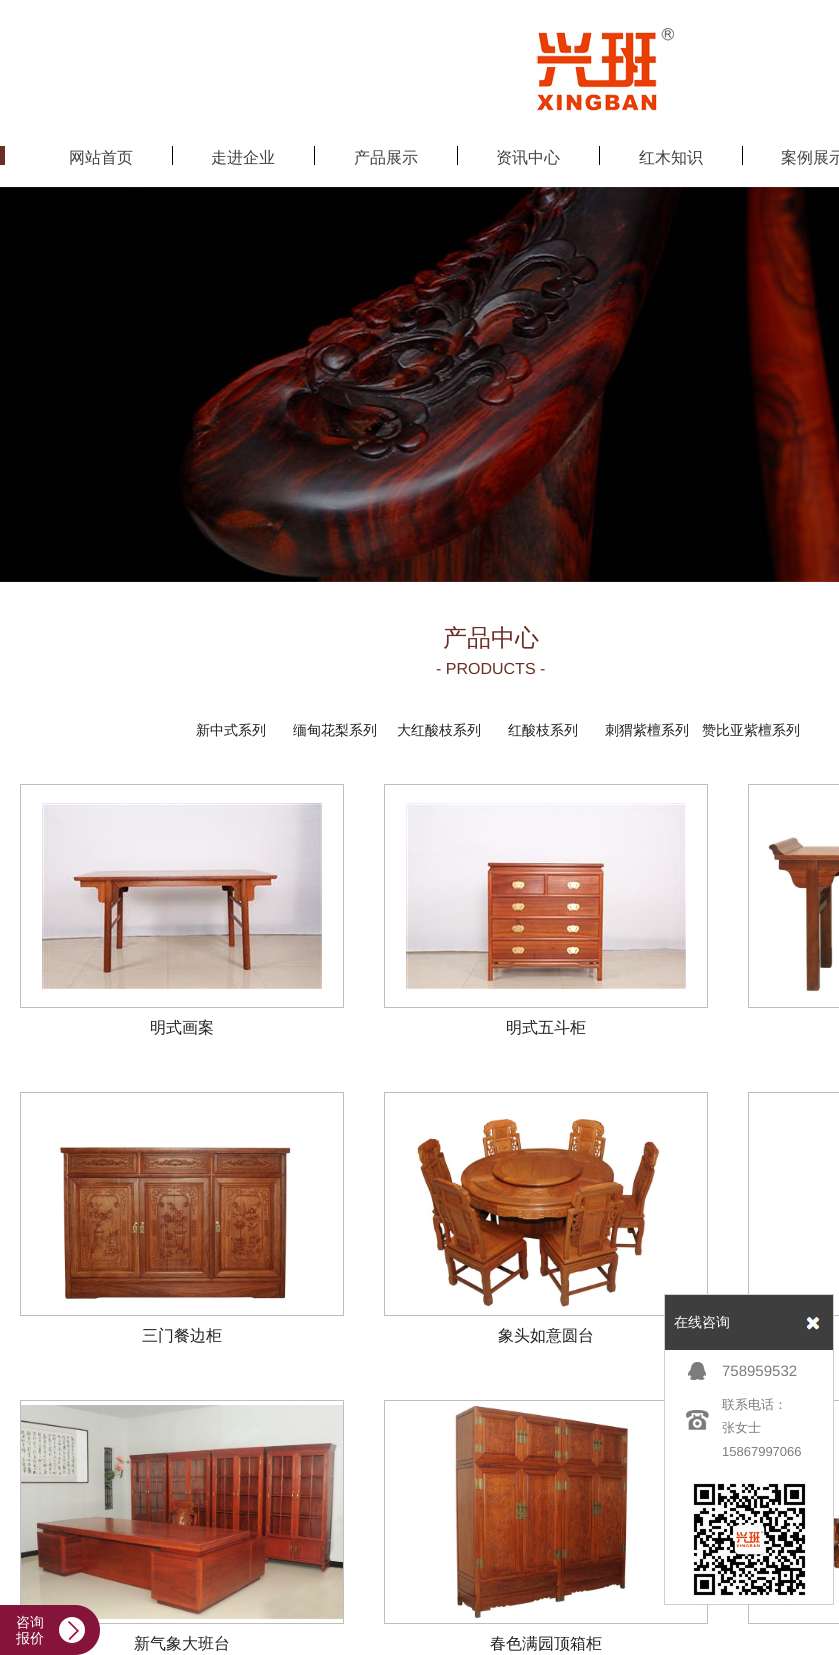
import math
import cairo


def paste(ctx, path, x, y, w, h):
	ctx.save()
	ctx.set_source_surface(cairo.ImageSurface.create_from_png(path), x, y)
	ctx.rectangle(x, y, w, h)
	ctx.fill()
	ctx.restore()

def draw(ctx):
	ctx.set_source_rgb(1, 1, 1)
	ctx.paint()
	ctx.rectangle(20.5, 1400.5, 323, 223)
	ctx.set_source_rgb(0.749, 0.741, 0.749)
	ctx.set_line_width(1)
	ctx.stroke()
	paste(ctx, 'media/10.png', 21, 1405, 322, 214)
	ctx.set_source_rgb(0.525, 0.075, 0.224)
	ctx.new_path()
	ctx.move_to(0, 1605)
	ctx.line_to(75, 1605)
	ctx.curve_to(89, 1605, 100, 1616, 100, 1630)
	ctx.curve_to(100, 1644, 89, 1655, 75, 1655)
	ctx.line_to(0, 1655)
	ctx.close_path()
	ctx.fill()
	ctx.select_font_face('WenQuanYi Zen Hei Medium')
	ctx.set_font_size(14)
	ctx.set_source_rgb(1, 1, 1)
	ctx.move_to(16, 1627)
	ctx.show_text('咨询')
	ctx.move_to(16, 1643)
	ctx.show_text('报价')
	ctx.new_path()
	ctx.arc(72, 1630, 13, 0, 2 * math.pi)
	ctx.fill()
	paste(ctx, 'media/1.png', 68, 1621, 11, 19)
	paste(ctx, 'media/2.png', 536, 24, 138, 87)
	ctx.set_source_rgb(0.416, 0.18, 0.141)
	ctx.rectangle(0, 146, 5, 19)
	ctx.fill()
	ctx.set_font_size(16)
	ctx.set_source_rgb(0.251, 0.251, 0.251)
	ctx.move_to(69, 163)
	ctx.show_text('网站首页')
	ctx.set_source_rgb(0, 0, 0)
	ctx.rectangle(172, 146, 1, 19)
	ctx.fill()
	ctx.set_source_rgb(0.251, 0.251, 0.251)
	ctx.move_to(211, 163)
	ctx.show_text('走进企业')
	ctx.set_source_rgb(0, 0, 0)
	ctx.rectangle(314, 146, 1, 19)
	ctx.fill()
	ctx.set_source_rgb(0.251, 0.251, 0.251)
	ctx.move_to(354, 163)
	ctx.show_text('产品展示')
	ctx.set_source_rgb(0, 0, 0)
	ctx.rectangle(457, 146, 1, 19)
	ctx.fill()
	ctx.set_source_rgb(0.251, 0.251, 0.251)
	ctx.move_to(496, 163)
	ctx.show_text('资讯中心')
	ctx.set_source_rgb(0, 0, 0)
	ctx.rectangle(599, 146, 1, 19)
	ctx.fill()
	ctx.set_source_rgb(0.251, 0.251, 0.251)
	ctx.move_to(639, 163)
	ctx.show_text('红木知识')
	ctx.set_source_rgb(0, 0, 0)
	ctx.rectangle(742, 146, 1, 19)
	ctx.fill()
	ctx.set_source_rgb(0.251, 0.251, 0.251)
	ctx.move_to(781, 163)
	ctx.show_text('案例展示')
	paste(ctx, 'media/3.png', 0, 187, 839, 395)
	ctx.set_font_size(24)
	ctx.set_source_rgb(0.416, 0.18, 0.141)
	ctx.move_to(443, 646)
	ctx.show_text('产品中心')
	ctx.select_font_face('Liberation Sans')
	ctx.set_font_size(16)
	ctx.move_to(436, 674)
	ctx.show_text('- PRODUCTS -')
	ctx.select_font_face('WenQuanYi Zen Hei Medium')
	ctx.set_font_size(14)
	ctx.set_source_rgb(0.133, 0.133, 0.133)
	for x, y, s in [
		(196, 735, '新中式系列'),
		(293, 735, '缅甸花梨系列'),
		(397, 735, '大红酸枝系列'),
		(508, 735, '红酸枝系列'),
		(605, 735, '刺猬紫檀系列'),
		(702, 735, '赞比亚紫檀系列'),
	]:
		ctx.move_to(x, y)
		ctx.show_text(s)
	ctx.rectangle(748.5, 784.5, 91, 223)
	ctx.set_source_rgb(0.749, 0.741, 0.749)
	ctx.stroke()
	paste(ctx, 'media/4.png', 768, 837, 71, 155)
	ctx.rectangle(20.5, 784.5, 323, 223)
	ctx.stroke()
	paste(ctx, 'media/5.png', 42, 803, 280, 186)
	ctx.set_font_size(16)
	ctx.set_source_rgb(0.133, 0.133, 0.133)
	ctx.move_to(150, 1033)
	ctx.show_text('明式画案')
	ctx.rectangle(384.5, 784.5, 323, 223)
	ctx.set_source_rgb(0.749, 0.741, 0.749)
	ctx.stroke()
	paste(ctx, 'media/6.png', 406, 803, 280, 186)
	ctx.set_source_rgb(0.133, 0.133, 0.133)
	ctx.move_to(506, 1033)
	ctx.show_text('明式五斗柜')
	ctx.rectangle(748.5, 1092.5, 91, 223)
	ctx.set_source_rgb(0.749, 0.741, 0.749)
	ctx.stroke()
	ctx.rectangle(20.5, 1092.5, 323, 223)
	ctx.stroke()
	paste(ctx, 'media/7.png', 58, 1146, 236, 154)
	ctx.set_source_rgb(0.133, 0.133, 0.133)
	ctx.move_to(142, 1341)
	ctx.show_text('三门餐边柜')
	ctx.rectangle(384.5, 1092.5, 323, 223)
	ctx.set_source_rgb(0.749, 0.741, 0.749)
	ctx.stroke()
	paste(ctx, 'media/8.png', 416, 1117, 244, 190)
	ctx.set_source_rgb(0.133, 0.133, 0.133)
	ctx.move_to(498, 1341)
	ctx.show_text('象头如意圆台')
	ctx.rectangle(748.5, 1400.5, 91, 223)
	ctx.set_source_rgb(0.749, 0.741, 0.749)
	ctx.stroke()
	paste(ctx, 'media/9.png', 834, 1496, 5, 93)
	ctx.set_source_rgb(0.133, 0.133, 0.133)
	ctx.move_to(134, 1649)
	ctx.show_text('新气象大班台')
	ctx.rectangle(384.5, 1400.5, 323, 223)
	ctx.set_source_rgb(0.749, 0.741, 0.749)
	ctx.stroke()
	paste(ctx, 'media/11.png', 454, 1401, 175, 219)
	ctx.set_source_rgb(0.133, 0.133, 0.133)
	ctx.move_to(490, 1649)
	ctx.show_text('春色满园顶箱柜')
	ctx.set_source_rgb(1, 1, 1)
	ctx.rectangle(665, 1400, 168, 204)
	ctx.fill()
	ctx.rectangle(664.5, 1294.5, 169, 310)
	ctx.set_source_rgb(0.812, 0.812, 0.812)
	ctx.stroke()
	ctx.set_source_rgb(0.243, 0.243, 0.243)
	ctx.rectangle(665, 1295, 168, 55)
	ctx.fill()
	ctx.set_font_size(14)
	ctx.set_source_rgb(1, 1, 1)
	ctx.move_to(674, 1327)
	ctx.show_text('在线咨询')
	paste(ctx, 'media/12.png', 806, 1317, 14, 13)
	paste(ctx, 'media/13.png', 688, 1362, 18, 18)
	ctx.select_font_face('Liberation Sans')
	ctx.set_font_size(15)
	ctx.set_source_rgb(0.482, 0.482, 0.482)
	ctx.move_to(722, 1376)
	ctx.show_text('758959532')
	paste(ctx, 'media/14.png', 686, 1410, 23, 20)
	ctx.select_font_face('WenQuanYi Zen Hei Medium')
	ctx.set_font_size(13)
	ctx.move_to(722, 1409)
	ctx.show_text('联系电话：')
	ctx.move_to(722, 1432)
	ctx.show_text('张女士')
	ctx.select_font_face('Liberation Sans')
	ctx.move_to(722, 1456)
	ctx.show_text('15867997066')
	paste(ctx, 'media/15.png', 693, 1483, 114, 120)


surface = cairo.ImageSurface(cairo.FORMAT_RGB24, 839, 1655)
ctx = cairo.Context(surface)
options = cairo.FontOptions()
options.set_hint_metrics(cairo.HINT_METRICS_OFF)
options.set_hint_style(cairo.HINT_STYLE_NONE)
ctx.set_font_options(options)
ctx.set_miter_limit(4)
draw(ctx)
surface.write_to_png('image.png')
